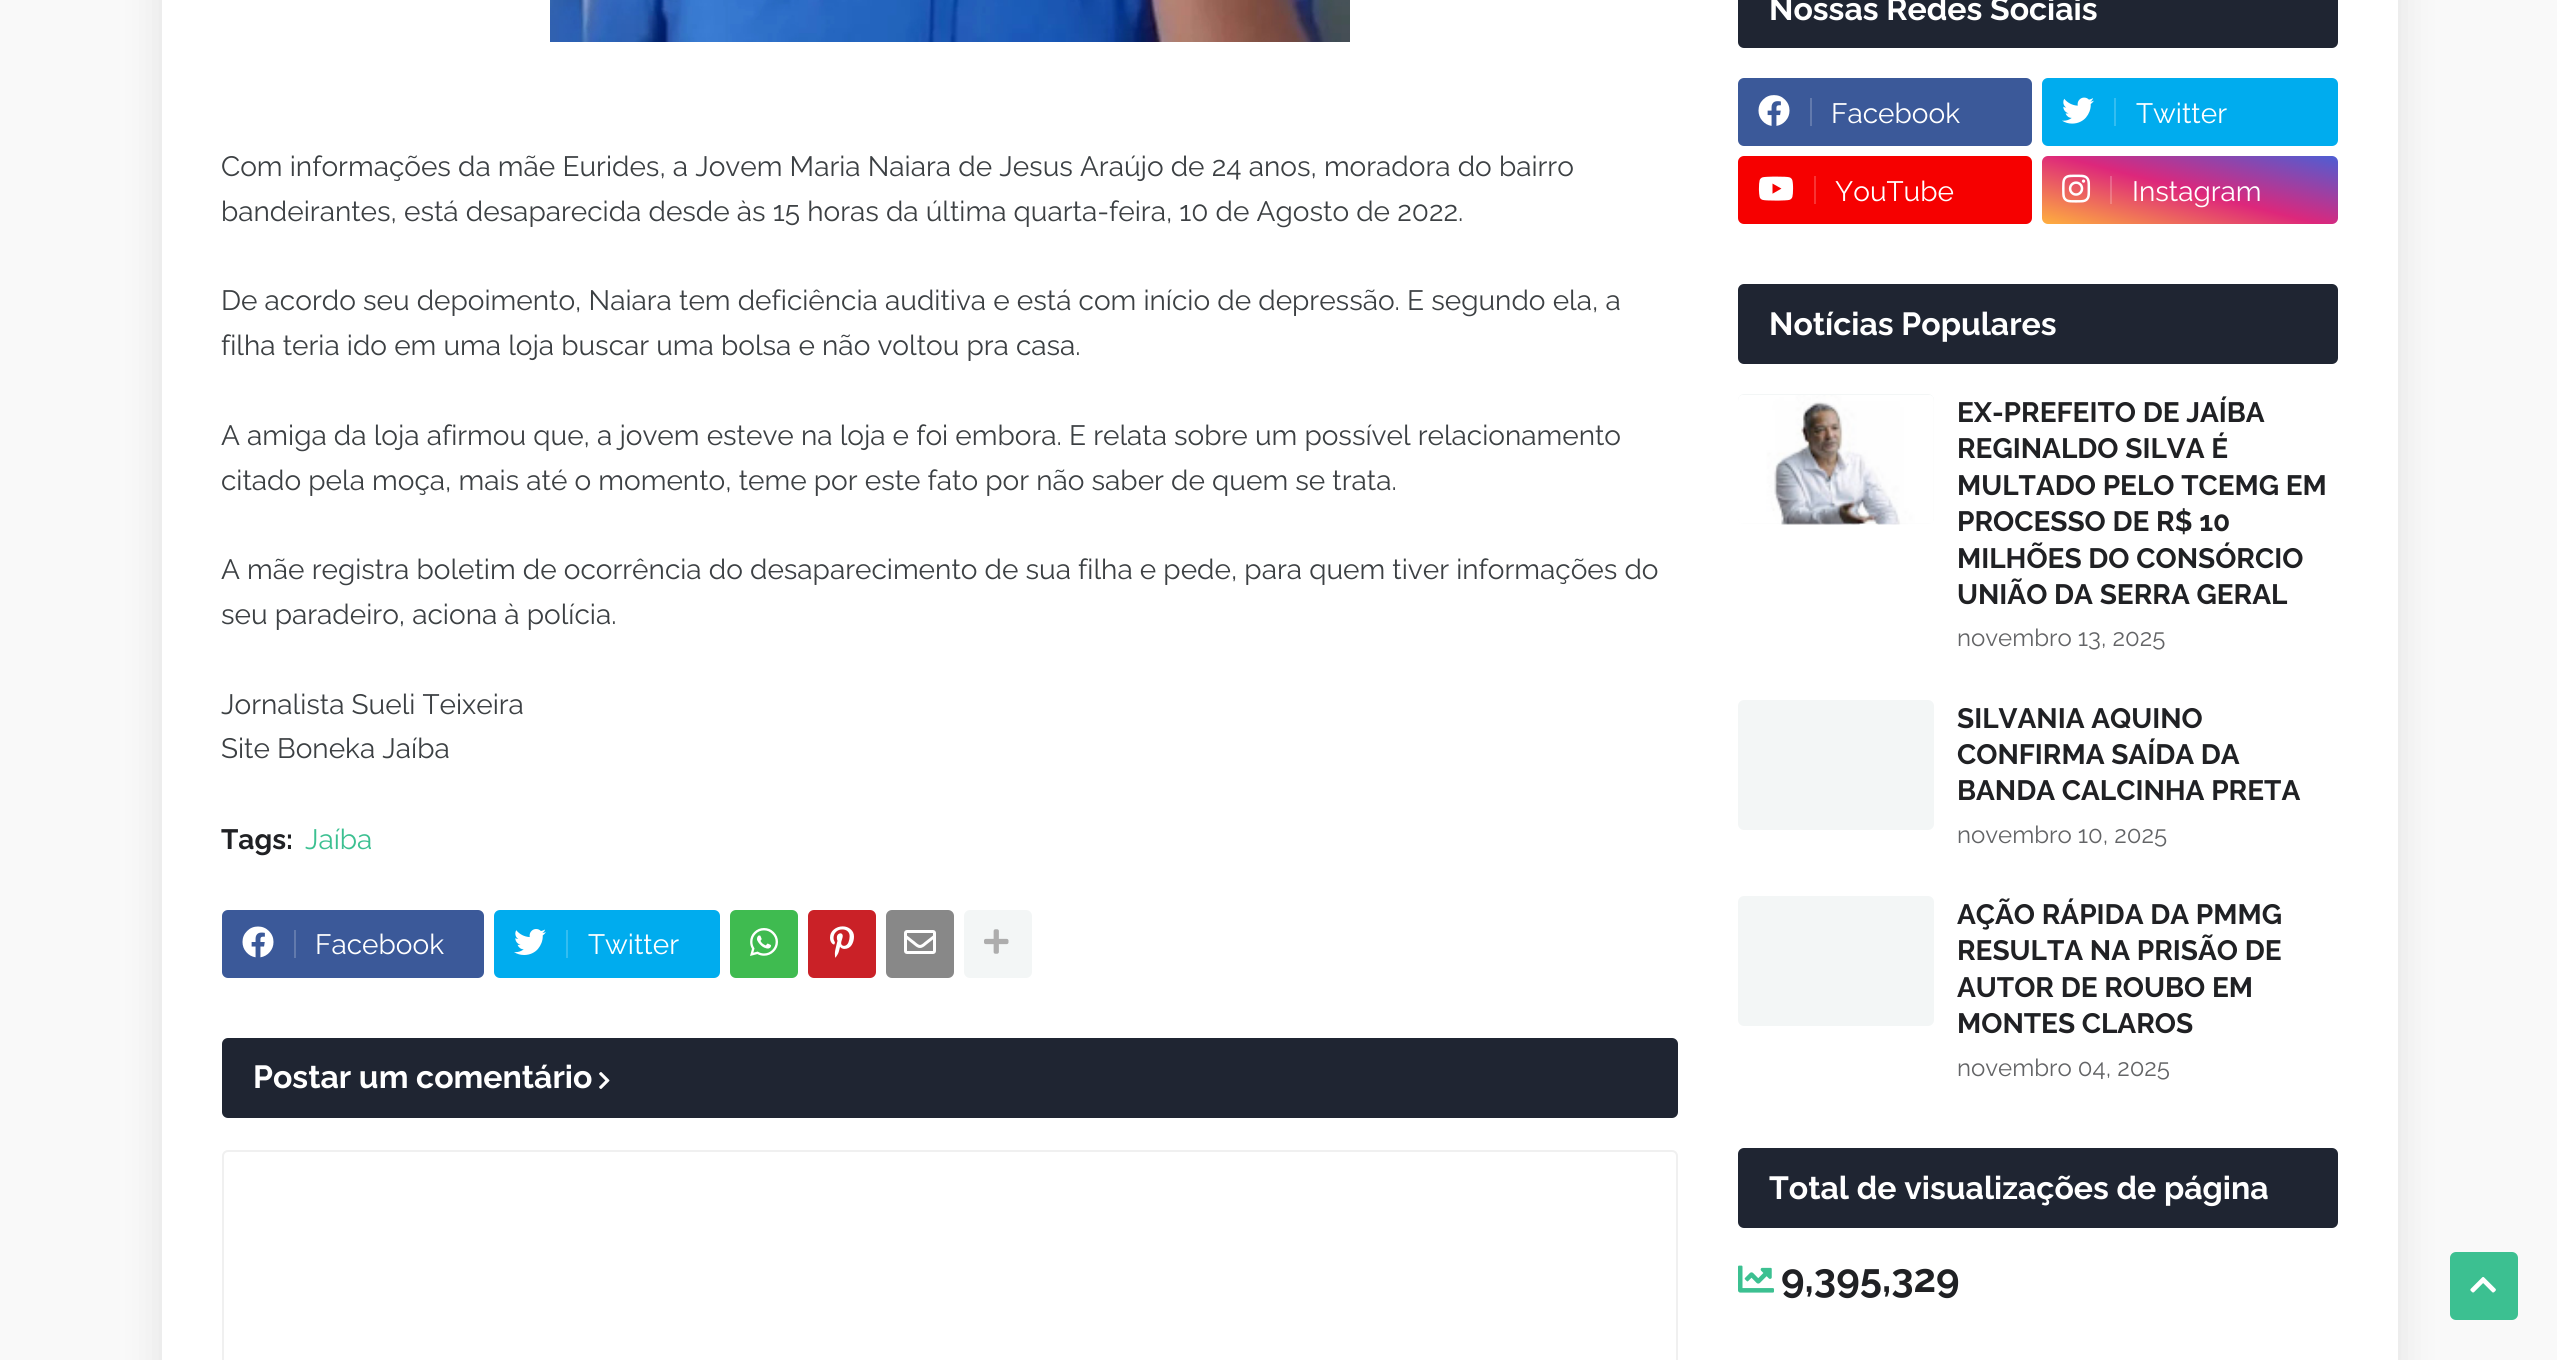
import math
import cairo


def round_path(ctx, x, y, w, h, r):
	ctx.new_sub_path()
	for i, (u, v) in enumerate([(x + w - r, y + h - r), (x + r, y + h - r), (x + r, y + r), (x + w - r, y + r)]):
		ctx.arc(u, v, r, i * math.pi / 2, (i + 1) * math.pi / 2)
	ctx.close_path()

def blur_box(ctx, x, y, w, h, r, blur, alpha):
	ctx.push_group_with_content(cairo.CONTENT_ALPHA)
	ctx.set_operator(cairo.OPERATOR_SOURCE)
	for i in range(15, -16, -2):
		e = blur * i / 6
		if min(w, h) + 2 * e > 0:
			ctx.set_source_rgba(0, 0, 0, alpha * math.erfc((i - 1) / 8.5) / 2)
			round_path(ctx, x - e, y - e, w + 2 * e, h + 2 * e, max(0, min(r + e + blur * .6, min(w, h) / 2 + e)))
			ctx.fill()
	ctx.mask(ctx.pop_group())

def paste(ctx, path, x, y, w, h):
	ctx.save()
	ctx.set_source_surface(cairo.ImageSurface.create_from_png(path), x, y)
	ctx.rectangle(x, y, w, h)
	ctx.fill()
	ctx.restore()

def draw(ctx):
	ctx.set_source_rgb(0.973, 0.973, 0.973)
	ctx.paint()
	ctx.set_source_rgb(0, 0, 0)
	blur_box(ctx, 162, -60, 2236, 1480, 0, 20, 0.1)
	ctx.set_source_rgb(1, 1, 1)
	ctx.rectangle(162, 0, 2236, 1360)
	ctx.fill()
	paste(ctx, 'media/1.png', 550, 0, 800, 42)
	ctx.select_font_face('Raleway')
	ctx.set_font_size(28)
	ctx.set_source_rgb(0.235, 0.251, 0.263)
	for x, y, s in [
		(221, 176, 'Com informações da mãe Eurides, a Jovem Maria Naiara de Jesus Araújo de 24 anos, moradora do bairro'),
		(221, 221, 'bandeirantes, está desaparecida desde às 15 horas da última quarta-feira, 10 de Agosto de 2022.'),
		(221, 310, 'De acordo seu depoimento, Naiara tem deficiência auditiva e está com início de depressão. E segundo ela, a'),
		(221, 355, 'filha teria ido em uma loja buscar uma bolsa e não voltou pra casa.'),
		(221, 445, 'A amiga da loja afirmou que, a jovem esteve na loja e foi embora. E relata sobre um possível relacionamento'),
		(221, 490, 'citado pela moça, mais até o momento, teme por este fato por não saber de quem se trata.'),
		(221, 579, 'A mãe registra boletim de ocorrência do desaparecimento de sua filha e pede, para quem tiver informações do'),
		(221, 624, 'seu paradeiro, aciona à polícia.'),
		(221, 714, 'Jornalista Sueli Teixeira'),
		(221, 758, 'Site Boneka Jaíba'),
	]:
		ctx.move_to(x, y)
		ctx.show_text(s)
	ctx.select_font_face('Raleway', cairo.FONT_SLANT_NORMAL, cairo.FONT_WEIGHT_BOLD)
	ctx.set_source_rgb(0.125, 0.129, 0.141)
	ctx.move_to(221, 849)
	ctx.show_text('Tags:')
	ctx.select_font_face('Raleway')
	ctx.set_source_rgb(0.235, 0.753, 0.569)
	ctx.move_to(305, 849)
	ctx.show_text('Jaíba')
	ctx.set_source_rgb(0.231, 0.349, 0.6)
	round_path(ctx, 222, 910, 262, 68, 6)
	ctx.fill()
	paste(ctx, 'media/2.png', 242, 926, 32, 32)
	ctx.set_source_rgb(0.384, 0.478, 0.678)
	ctx.rectangle(294, 930, 2, 28)
	ctx.fill()
	ctx.set_source_rgb(1, 1, 1)
	ctx.move_to(315, 954)
	ctx.show_text('Facebook')
	ctx.set_source_rgb(0, 0.675, 0.933)
	round_path(ctx, 494, 910, 226, 68, 6)
	ctx.fill()
	paste(ctx, 'media/3.png', 514, 929, 32, 26)
	ctx.set_source_rgb(0.2, 0.741, 0.945)
	ctx.rectangle(566, 930, 2, 28)
	ctx.fill()
	ctx.set_source_rgb(1, 1, 1)
	ctx.move_to(588, 954)
	ctx.show_text('Twitter')
	ctx.set_source_rgb(0.247, 0.733, 0.314)
	round_path(ctx, 730, 910, 68, 68, 6)
	ctx.fill()
	paste(ctx, 'media/4.png', 750, 928, 28, 28)
	ctx.set_source_rgb(0.792, 0.129, 0.153)
	round_path(ctx, 808, 910, 68, 68, 6)
	ctx.fill()
	paste(ctx, 'media/5.png', 830, 926, 24, 32)
	ctx.set_source_rgb(0.533, 0.533, 0.533)
	round_path(ctx, 886, 910, 68, 68, 6)
	ctx.fill()
	paste(ctx, 'media/6.png', 904, 930, 32, 24)
	ctx.set_source_rgb(0.953, 0.961, 0.961)
	round_path(ctx, 964, 910, 68, 68, 6)
	ctx.fill()
	paste(ctx, 'media/7.png', 984, 929, 25, 25)
	ctx.set_source_rgb(0.122, 0.145, 0.196)
	round_path(ctx, 222, 1038, 1456, 80, 6)
	ctx.fill()
	ctx.select_font_face('Raleway', cairo.FONT_SLANT_NORMAL, cairo.FONT_WEIGHT_BOLD)
	ctx.set_font_size(32)
	ctx.set_source_rgb(1, 1, 1)
	ctx.move_to(253, 1088)
	ctx.show_text('Postar um comentário')
	paste(ctx, 'media/8.png', 599, 1072, 11, 17)
	round_path(ctx, 223, 1151, 1454, 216, 5)
	ctx.set_source_rgb(0.941, 0.941, 0.941)
	ctx.stroke()
	ctx.set_source_rgb(0.122, 0.145, 0.196)
	round_path(ctx, 1738, -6, 600, 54, 6)
	ctx.fill()
	ctx.set_source_rgb(1, 1, 1)
	ctx.move_to(1769, 20)
	ctx.show_text('Nossas Redes Sociais')
	ctx.set_source_rgb(0.231, 0.349, 0.6)
	round_path(ctx, 1738, 78, 294, 68, 6)
	ctx.fill()
	paste(ctx, 'media/9.png', 1758, 95, 32, 31)
	ctx.set_source_rgb(0.384, 0.478, 0.678)
	ctx.rectangle(1810, 98, 2, 28)
	ctx.fill()
	ctx.select_font_face('Raleway')
	ctx.set_font_size(28)
	ctx.set_source_rgb(1, 1, 1)
	ctx.move_to(1831, 123)
	ctx.show_text('Facebook')
	ctx.set_source_rgb(0, 0.675, 0.933)
	round_path(ctx, 2042, 78, 296, 68, 6)
	ctx.fill()
	paste(ctx, 'media/10.png', 2062, 97, 32, 27)
	ctx.set_source_rgb(0.2, 0.741, 0.945)
	ctx.rectangle(2114, 98, 2, 28)
	ctx.fill()
	ctx.set_source_rgb(1, 1, 1)
	ctx.move_to(2136, 123)
	ctx.show_text('Twitter')
	ctx.set_source_rgb(0.961, 0, 0)
	round_path(ctx, 1738, 156, 294, 68, 6)
	ctx.fill()
	paste(ctx, 'media/11.png', 1758, 176, 36, 25)
	ctx.set_source_rgb(0.969, 0.2, 0.2)
	ctx.rectangle(1814, 176, 2, 28)
	ctx.fill()
	ctx.set_source_rgb(1, 1, 1)
	ctx.move_to(1835, 201)
	ctx.show_text('YouTube')
	gradient = cairo.LinearGradient(2172, 259, 2208, 122)
	gradient.add_color_stop_rgba(0, 1, 0.694, 0.239, 1)
	gradient.add_color_stop_rgba(0.5, 0.867, 0.153, 0.482, 1)
	gradient.add_color_stop_rgba(1, 0.302, 0.369, 0.831, 1)
	ctx.set_source(gradient)
	round_path(ctx, 2042, 156, 296, 68, 6)
	ctx.fill()
	gradient = cairo.LinearGradient(2172, 259, 2208, 122)
	gradient.add_color_stop_rgba(0, 1, 0.757, 0.392, 1)
	gradient.add_color_stop_rgba(0.5, 0.894, 0.322, 0.584, 1)
	gradient.add_color_stop_rgba(1, 0.443, 0.494, 0.867, 1)
	ctx.set_source(gradient)
	ctx.rectangle(2110, 176, 2, 28)
	ctx.fill()
	paste(ctx, 'media/12.png', 2062, 174, 29, 29)
	ctx.set_source_rgb(1, 1, 1)
	ctx.move_to(2132, 201)
	ctx.show_text('Instagram')
	ctx.set_source_rgb(0.122, 0.145, 0.196)
	round_path(ctx, 1738, 284, 600, 80, 6)
	ctx.fill()
	ctx.select_font_face('Raleway', cairo.FONT_SLANT_NORMAL, cairo.FONT_WEIGHT_BOLD)
	ctx.set_font_size(32)
	ctx.set_source_rgb(1, 1, 1)
	ctx.move_to(1769, 335)
	ctx.show_text('Notícias Populares')
	ctx.set_source_rgb(0.953, 0.961, 0.961)
	round_path(ctx, 1738, 394, 196, 130, 6)
	ctx.fill()
	paste(ctx, 'media/13.png', 1738, 395, 196, 130)
	ctx.set_font_size(28)
	ctx.set_source_rgb(0.125, 0.129, 0.141)
	for x, y, s in [
		(1957, 422, 'EX-PREFEITO DE JAÍBA'),
		(1957, 458, 'REGINALDO SILVA É'),
		(1957, 495, 'MULTADO PELO TCEMG EM'),
		(1957, 531, 'PROCESSO DE R$ 10'),
		(1957, 568, 'MILHÕES DO CONSÓRCIO'),
		(1957, 604, 'UNIÃO DA SERRA GERAL'),
	]:
		ctx.move_to(x, y)
		ctx.show_text(s)
	ctx.select_font_face('Raleway')
	ctx.set_font_size(24)
	ctx.set_source_rgb(0.388, 0.392, 0.4)
	ctx.move_to(1957, 646)
	ctx.show_text('novembro 13, 2025')
	ctx.set_source_rgb(0.953, 0.961, 0.961)
	round_path(ctx, 1738, 700, 196, 130, 6)
	ctx.fill()
	ctx.select_font_face('Raleway', cairo.FONT_SLANT_NORMAL, cairo.FONT_WEIGHT_BOLD)
	ctx.set_font_size(28)
	ctx.set_source_rgb(0.125, 0.129, 0.141)
	for x, y, s in [
		(1957, 728, 'SILVANIA AQUINO'),
		(1957, 764, 'CONFIRMA SAÍDA DA'),
		(1957, 800, 'BANDA CALCINHA PRETA'),
	]:
		ctx.move_to(x, y)
		ctx.show_text(s)
	ctx.select_font_face('Raleway')
	ctx.set_font_size(24)
	ctx.set_source_rgb(0.388, 0.392, 0.4)
	ctx.move_to(1957, 843)
	ctx.show_text('novembro 10, 2025')
	ctx.set_source_rgb(0.953, 0.961, 0.961)
	round_path(ctx, 1738, 896, 196, 130, 6)
	ctx.fill()
	ctx.select_font_face('Raleway', cairo.FONT_SLANT_NORMAL, cairo.FONT_WEIGHT_BOLD)
	ctx.set_font_size(28)
	ctx.set_source_rgb(0.125, 0.129, 0.141)
	for x, y, s in [
		(1957, 924, 'AÇÃO RÁPIDA DA PMMG'),
		(1957, 960, 'RESULTA NA PRISÃO DE'),
		(1957, 997, 'AUTOR DE ROUBO EM'),
		(1957, 1033, 'MONTES CLAROS'),
	]:
		ctx.move_to(x, y)
		ctx.show_text(s)
	ctx.select_font_face('Raleway')
	ctx.set_font_size(24)
	ctx.set_source_rgb(0.388, 0.392, 0.4)
	ctx.move_to(1957, 1076)
	ctx.show_text('novembro 04, 2025')
	ctx.set_source_rgb(0.122, 0.145, 0.196)
	round_path(ctx, 1738, 1148, 600, 80, 6)
	ctx.fill()
	ctx.select_font_face('Raleway', cairo.FONT_SLANT_NORMAL, cairo.FONT_WEIGHT_BOLD)
	ctx.set_font_size(32)
	ctx.set_source_rgb(1, 1, 1)
	ctx.move_to(1769, 1199)
	ctx.show_text('Total de visualizações de página')
	paste(ctx, 'media/14.png', 1738, 1265, 36, 28)
	ctx.set_font_size(40)
	ctx.set_source_rgb(0.125, 0.129, 0.141)
	ctx.move_to(1781, 1292)
	ctx.show_text('9,395,329')
	ctx.set_source_rgb(0.235, 0.753, 0.569)
	round_path(ctx, 2450, 1252, 68, 68, 6)
	ctx.fill()
	paste(ctx, 'media/15.png', 2470, 1277, 26, 16)


surface = cairo.ImageSurface(cairo.FORMAT_RGB24, 2557, 1360)
ctx = cairo.Context(surface)
options = cairo.FontOptions()
options.set_hint_metrics(cairo.HINT_METRICS_OFF)
options.set_hint_style(cairo.HINT_STYLE_NONE)
ctx.set_font_options(options)
ctx.set_miter_limit(4)
draw(ctx)
surface.write_to_png('image.png')
